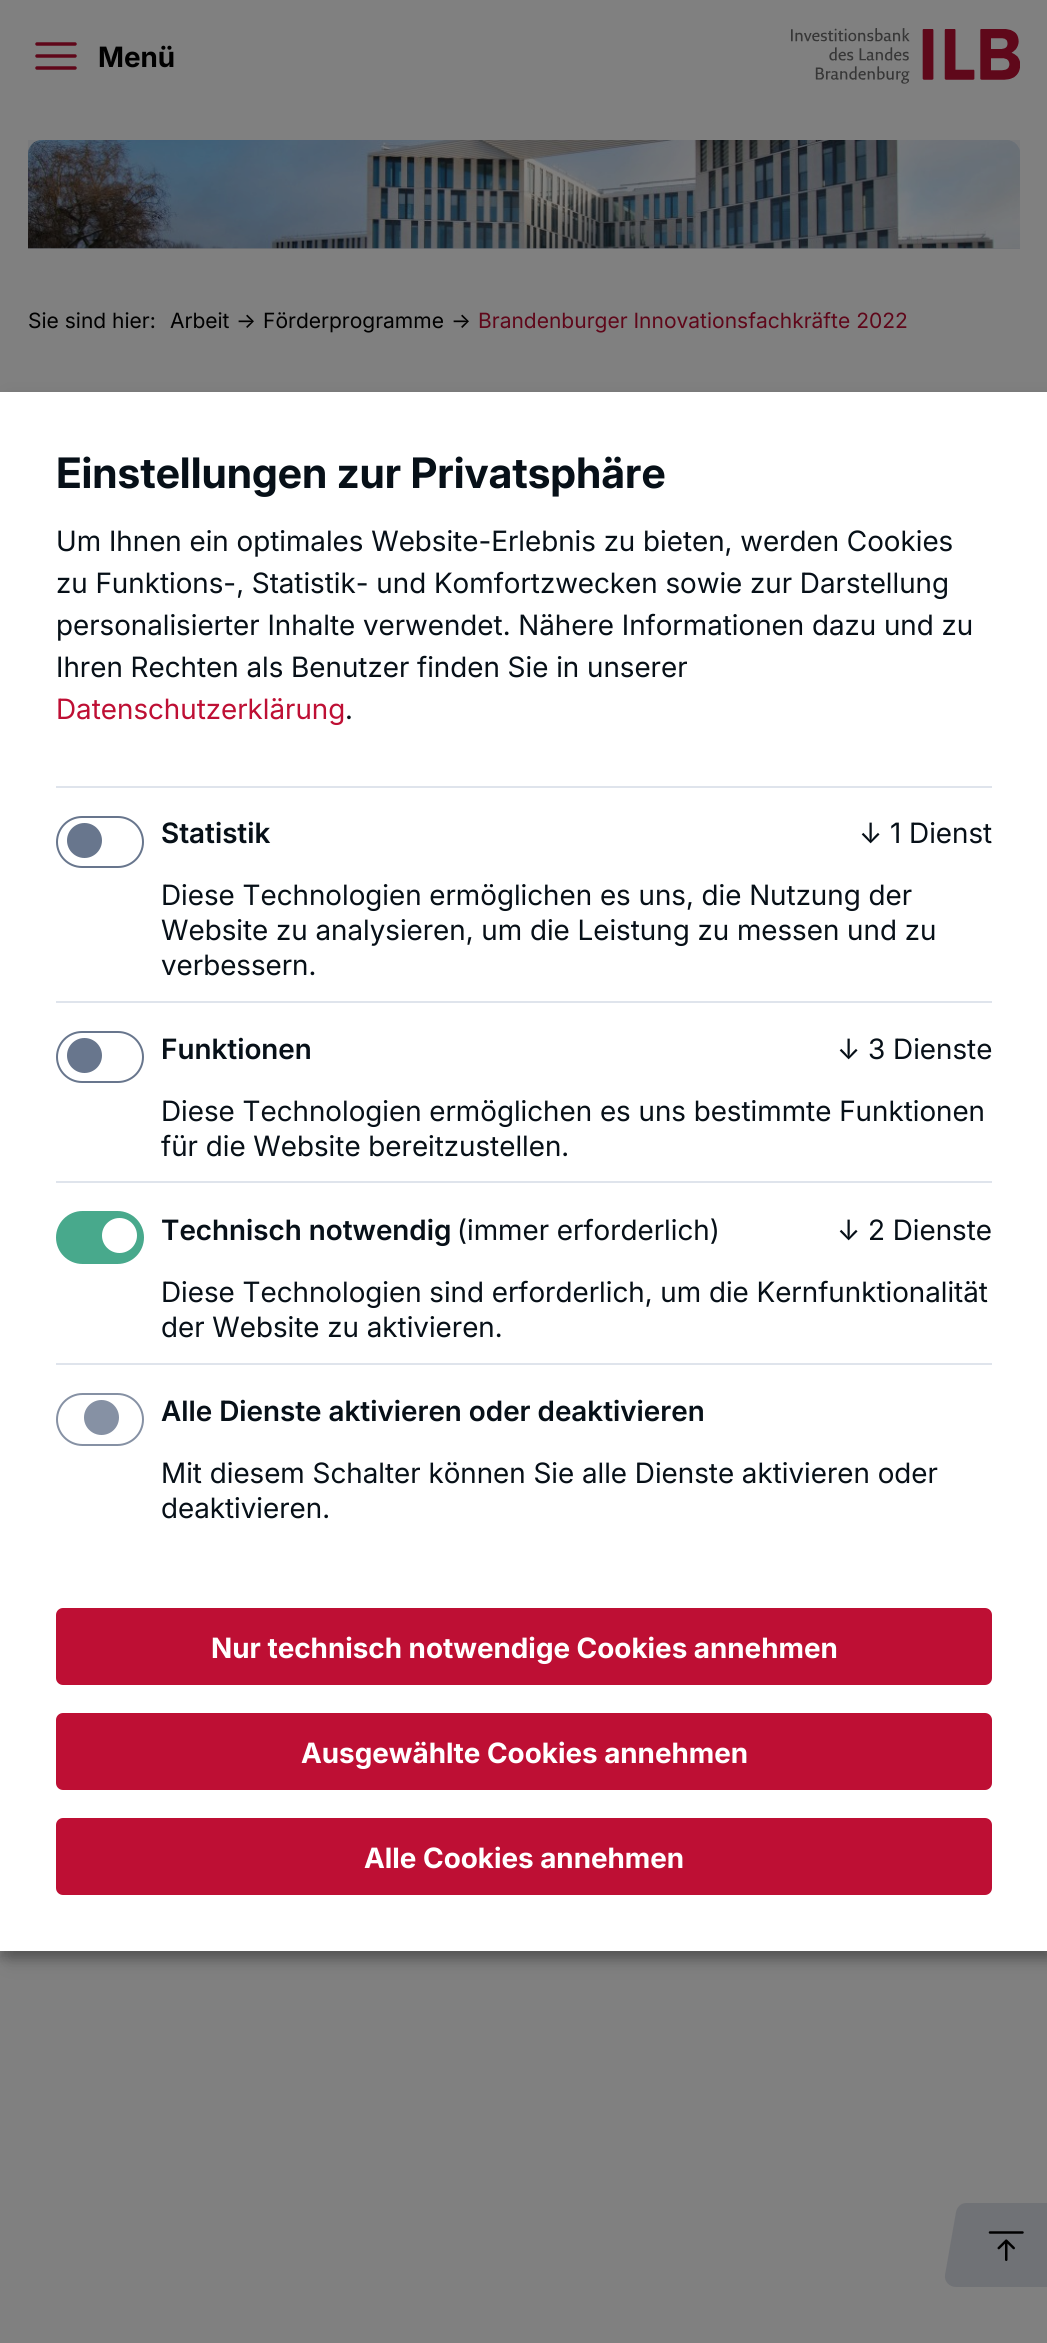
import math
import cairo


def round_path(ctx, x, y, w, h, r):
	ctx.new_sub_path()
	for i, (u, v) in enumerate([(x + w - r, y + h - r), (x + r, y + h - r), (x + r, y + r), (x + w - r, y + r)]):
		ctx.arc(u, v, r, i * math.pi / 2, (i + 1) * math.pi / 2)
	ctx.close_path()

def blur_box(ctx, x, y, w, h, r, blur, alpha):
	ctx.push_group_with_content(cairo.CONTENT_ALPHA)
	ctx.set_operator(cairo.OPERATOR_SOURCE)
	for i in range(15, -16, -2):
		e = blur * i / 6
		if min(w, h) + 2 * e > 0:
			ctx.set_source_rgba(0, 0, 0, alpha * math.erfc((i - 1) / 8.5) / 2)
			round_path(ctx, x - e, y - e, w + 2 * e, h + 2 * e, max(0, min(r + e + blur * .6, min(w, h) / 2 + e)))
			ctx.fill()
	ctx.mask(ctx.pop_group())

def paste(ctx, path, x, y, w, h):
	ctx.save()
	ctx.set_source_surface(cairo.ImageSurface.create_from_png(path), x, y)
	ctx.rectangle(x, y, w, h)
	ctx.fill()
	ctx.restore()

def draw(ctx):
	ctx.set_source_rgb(0.502, 0.502, 0.502)
	ctx.paint()
	ctx.new_path()
	ctx.move_to(37, 44)
	ctx.line_to(75, 44)
	ctx.move_to(37, 56)
	ctx.line_to(75, 56)
	ctx.move_to(37, 68)
	ctx.line_to(75, 68)
	ctx.set_source_rgb(0.373, 0.031, 0.102)
	ctx.set_line_width(3.5)
	ctx.set_line_cap(cairo.LINE_CAP_ROUND)
	ctx.set_line_join(cairo.LINE_JOIN_ROUND)
	ctx.stroke()
	ctx.select_font_face('Inter', cairo.FONT_SLANT_NORMAL, cairo.FONT_WEIGHT_BOLD)
	ctx.set_font_size(28)
	ctx.set_source_rgb(0, 0, 0)
	ctx.move_to(98, 67)
	ctx.show_text('Menü')
	paste(ctx, 'media/1.png', 791, 28, 229, 56)
	ctx.set_source_rgb(0.475, 0.478, 0.486)
	ctx.rectangle(28, 140, 992, 14)
	ctx.fill()
	ctx.set_source_rgb(0.439, 0.447, 0.463)
	ctx.new_path()
	ctx.move_to(42, 140)
	ctx.line_to(1006, 140)
	ctx.curve_to(1013.5, 140, 1020, 146.5, 1020, 154)
	ctx.line_to(1020, 249)
	ctx.line_to(28, 249)
	ctx.line_to(28, 154)
	ctx.curve_to(28, 146.5, 34.5, 140, 42, 140)
	ctx.close_path()
	ctx.fill()
	paste(ctx, 'media/2.png', 28, 140, 992, 109)
	ctx.select_font_face('Inter')
	ctx.set_font_size(21)
	ctx.set_source_rgb(0, 0, 0)
	for x, y, s in [
		(28, 328, 'Sie sind hier:'),
		(170, 328, 'Arbeit'),
		(236, 328, '→'),
		(263, 328, 'Förderprogramme'),
		(451, 328, '→'),
	]:
		ctx.move_to(x, y)
		ctx.show_text(s)
	ctx.set_source_rgb(0.373, 0.031, 0.102)
	ctx.move_to(478, 328)
	ctx.show_text('Brandenburger Innovationsfachkräfte 2022')
	ctx.set_source_rgb(0.439, 0.447, 0.463)
	ctx.new_path()
	ctx.move_to(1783, 2287)
	ctx.line_to(956, 2287)
	ctx.curve_to(949, 2287, 944, 2281, 945, 2275)
	ctx.line_to(956, 2212)
	ctx.curve_to(957, 2207, 961, 2203, 966, 2203)
	ctx.line_to(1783, 2203)
	ctx.close_path()
	ctx.fill()
	paste(ctx, 'media/3.png', 988, 2231, 36, 30)
	ctx.set_source_rgb(0, 0, 0)
	blur_box(ctx, 9, 401, 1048, 1559, 0, 9, 0.19)
	blur_box(ctx, 0, 399, 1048, 1559, 0, 5, 0.2)
	ctx.set_source_rgb(1, 1, 1)
	ctx.rectangle(0, 392, 1047, 1559)
	ctx.fill()
	ctx.select_font_face('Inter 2', cairo.FONT_SLANT_NORMAL, cairo.FONT_WEIGHT_BOLD)
	ctx.set_font_size(42)
	ctx.set_source_rgb(0.031, 0.063, 0.094)
	ctx.move_to(56, 488)
	ctx.show_text('Einstellungen zur Privatsphäre')
	ctx.select_font_face('Inter 2')
	ctx.set_font_size(28)
	for x, y, s in [
		(56, 551, 'Um Ihnen ein optimales Website-Erlebnis zu bieten, werden Cookies'),
		(56, 593, 'zu Funktions-, Statistik- und Komfortzwecken sowie zur Darstellung'),
		(56, 635, 'personalisierter Inhalte verwendet. Nähere Informationen dazu und zu'),
		(56, 677, 'Ihren Rechten als Benutzer finden Sie in unserer'),
	]:
		ctx.move_to(x, y)
		ctx.show_text(s)
	ctx.set_source_rgb(0.745, 0.059, 0.204)
	ctx.move_to(56, 719)
	ctx.show_text('Datenschutzerklärung')
	ctx.set_source_rgb(0.031, 0.063, 0.094)
	ctx.move_to(345, 719)
	ctx.show_text('.')
	ctx.set_source_rgb(0.875, 0.894, 0.925)
	ctx.rectangle(56, 786, 936, 2)
	ctx.fill()
	round_path(ctx, 57, 817, 86, 50, 25)
	ctx.set_source_rgb(0.408, 0.463, 0.553)
	ctx.set_line_width(2)
	ctx.set_line_cap(cairo.LINE_CAP_BUTT)
	ctx.set_line_join(cairo.LINE_JOIN_MITER)
	ctx.stroke()
	ctx.arc(84.5, 840.5, 17.5, 0, 2 * math.pi)
	ctx.fill()
	ctx.select_font_face('Inter SemiBold')
	ctx.set_source_rgb(0.031, 0.063, 0.094)
	ctx.move_to(161, 843)
	ctx.show_text('Statistik')
	ctx.select_font_face('Inter 2')
	for x, y, s in [
		(859, 843, '↓ 1 Dienst'),
		(161, 905, 'Diese Technologien ermöglichen es uns, die Nutzung der'),
		(161, 940, 'Website zu analysieren, um die Leistung zu messen und zu'),
		(161, 975, 'verbessern.'),
	]:
		ctx.move_to(x, y)
		ctx.show_text(s)
	ctx.set_source_rgb(0.875, 0.894, 0.925)
	ctx.rectangle(56, 1001, 936, 2)
	ctx.fill()
	round_path(ctx, 57, 1032, 86, 50, 25)
	ctx.set_source_rgb(0.408, 0.463, 0.553)
	ctx.stroke()
	ctx.arc(84.5, 1055.5, 17.5, 0, 2 * math.pi)
	ctx.fill()
	ctx.select_font_face('Inter SemiBold')
	ctx.set_source_rgb(0.031, 0.063, 0.094)
	ctx.move_to(161, 1059)
	ctx.show_text('Funktionen')
	ctx.select_font_face('Inter 2')
	for x, y, s in [
		(837, 1059, '↓ 3 Dienste'),
		(161, 1121, 'Diese Technologien ermöglichen es uns bestimmte Funktionen'),
		(161, 1156, 'für die Website bereitzustellen.'),
	]:
		ctx.move_to(x, y)
		ctx.show_text(s)
	ctx.set_source_rgb(0.875, 0.894, 0.925)
	ctx.rectangle(56, 1181, 936, 2)
	ctx.fill()
	ctx.set_source_rgb(0.282, 0.663, 0.549)
	round_path(ctx, 57, 1212, 86, 51, 25.5)
	ctx.fill_preserve()
	ctx.stroke()
	ctx.set_source_rgb(1, 1, 1)
	ctx.arc(119.5, 1235.5, 17.5, 0, 2 * math.pi)
	ctx.fill()
	ctx.select_font_face('Inter SemiBold')
	ctx.set_source_rgb(0.031, 0.063, 0.094)
	ctx.move_to(161, 1240)
	ctx.show_text('Technisch notwendig')
	ctx.select_font_face('Inter 2')
	for x, y, s in [
		(457, 1240, '(immer erforderlich)'),
		(837, 1240, '↓ 2 Dienste'),
		(161, 1302, 'Diese Technologien sind erforderlich, um die Kernfunktionalität'),
		(161, 1337, 'der Website zu aktivieren.'),
	]:
		ctx.move_to(x, y)
		ctx.show_text(s)
	ctx.set_source_rgb(0.875, 0.894, 0.925)
	ctx.rectangle(56, 1363, 936, 2)
	ctx.fill()
	round_path(ctx, 57, 1394, 86, 51, 25.5)
	ctx.set_source_rgb(0.525, 0.569, 0.643)
	ctx.stroke()
	ctx.arc(101.5, 1417.5, 17.5, 0, 2 * math.pi)
	ctx.fill()
	ctx.select_font_face('Inter SemiBold')
	ctx.set_source_rgb(0.031, 0.063, 0.094)
	ctx.move_to(161, 1421)
	ctx.show_text('Alle Dienste aktivieren oder deaktivieren')
	ctx.select_font_face('Inter 2')
	ctx.move_to(161, 1483)
	ctx.show_text('Mit diesem Schalter können Sie alle Dienste aktivieren oder')
	ctx.move_to(161, 1518)
	ctx.show_text('deaktivieren.')
	ctx.set_source_rgb(0.745, 0.059, 0.204)
	round_path(ctx, 56, 1608, 936, 77, 7)
	ctx.fill()
	ctx.select_font_face('Inter', cairo.FONT_SLANT_NORMAL, cairo.FONT_WEIGHT_BOLD)
	ctx.set_source_rgb(1, 1, 1)
	ctx.move_to(211, 1658)
	ctx.show_text('Nur technisch notwendige Cookies annehmen')
	ctx.set_source_rgb(0.745, 0.059, 0.204)
	round_path(ctx, 56, 1713, 936, 77, 7)
	ctx.fill()
	ctx.set_source_rgb(1, 1, 1)
	ctx.move_to(301, 1763)
	ctx.show_text('Ausgewählte Cookies annehmen')
	ctx.set_source_rgb(0.745, 0.059, 0.204)
	round_path(ctx, 56, 1818, 936, 77, 7)
	ctx.fill()
	ctx.set_source_rgb(1, 1, 1)
	ctx.move_to(364, 1868)
	ctx.show_text('Alle Cookies annehmen')


surface = cairo.ImageSurface(cairo.FORMAT_RGB24, 1047, 2343)
ctx = cairo.Context(surface)
options = cairo.FontOptions()
options.set_hint_metrics(cairo.HINT_METRICS_OFF)
options.set_hint_style(cairo.HINT_STYLE_NONE)
ctx.set_font_options(options)
ctx.set_miter_limit(4)
draw(ctx)
surface.write_to_png('image.png')
